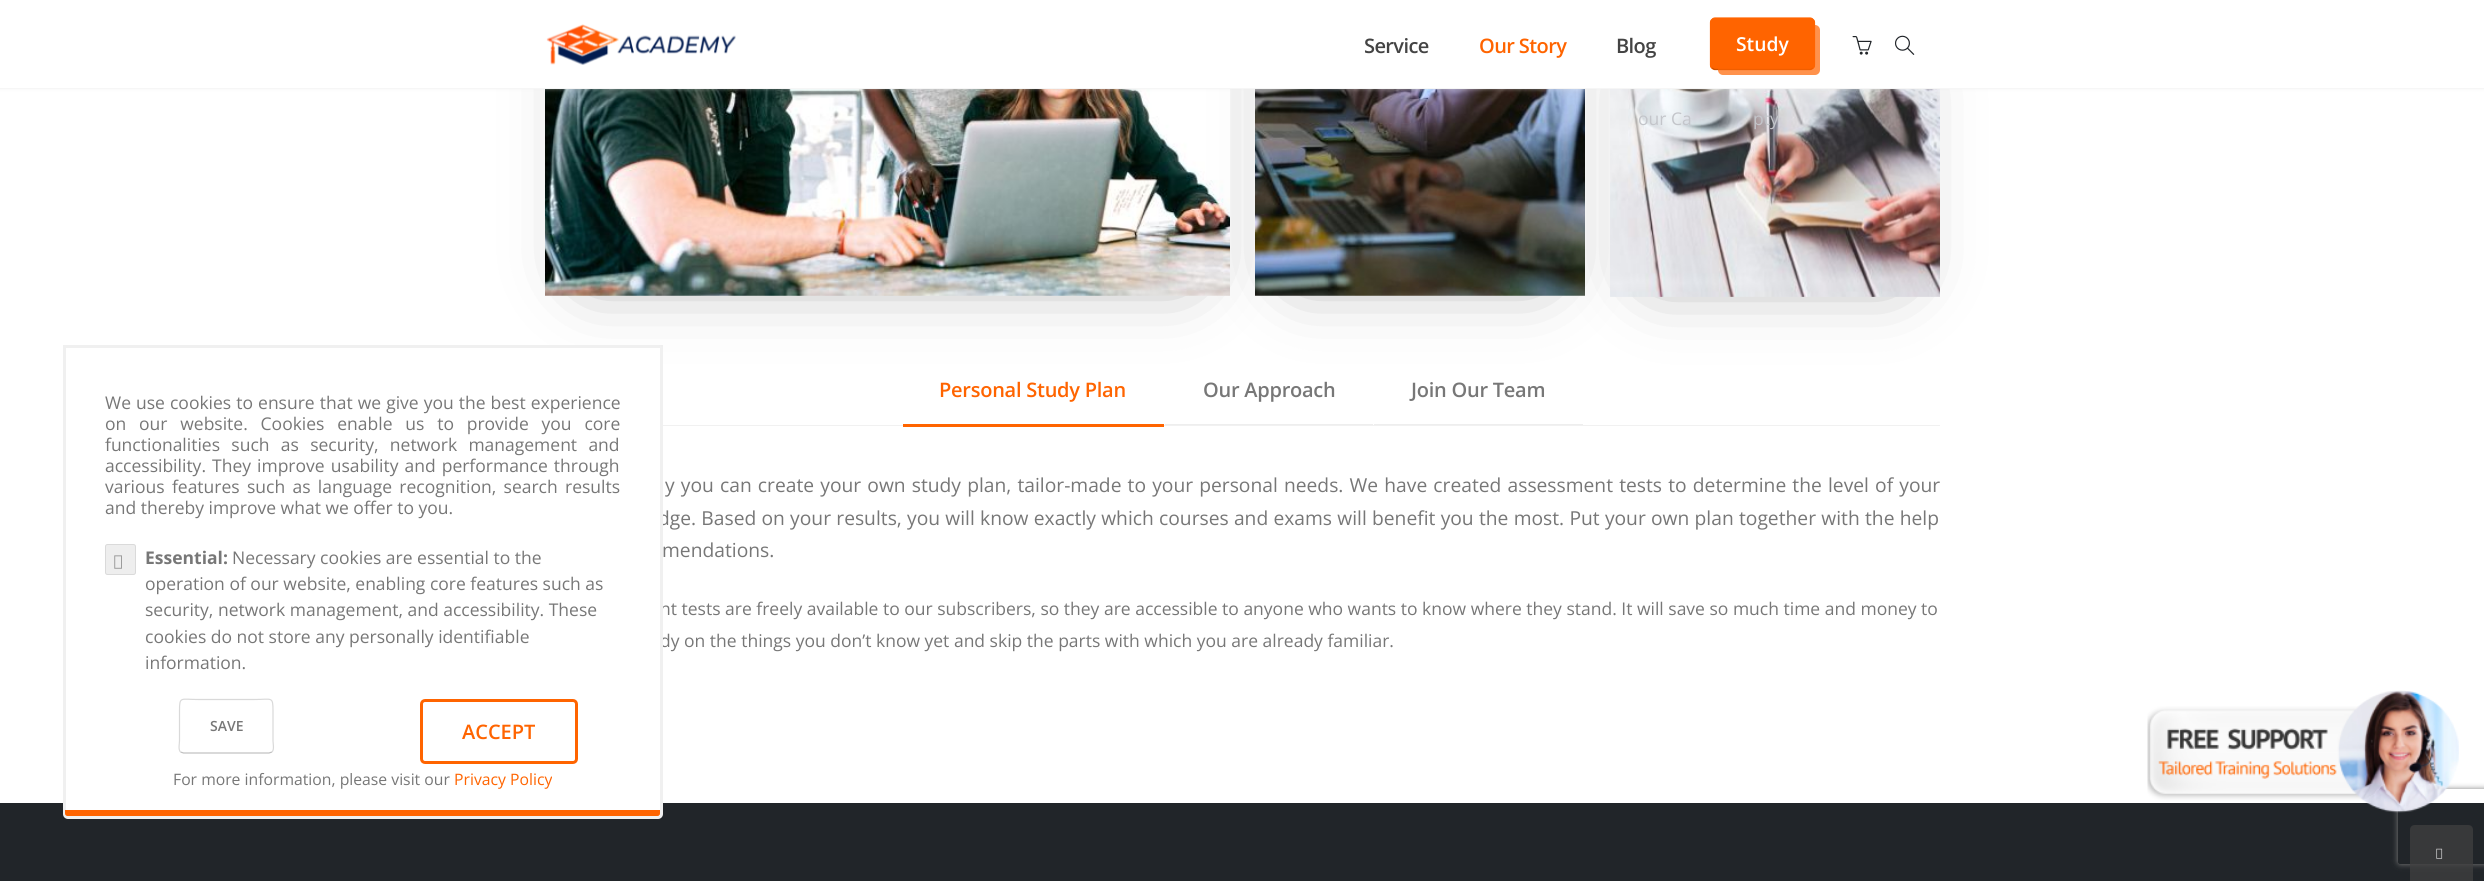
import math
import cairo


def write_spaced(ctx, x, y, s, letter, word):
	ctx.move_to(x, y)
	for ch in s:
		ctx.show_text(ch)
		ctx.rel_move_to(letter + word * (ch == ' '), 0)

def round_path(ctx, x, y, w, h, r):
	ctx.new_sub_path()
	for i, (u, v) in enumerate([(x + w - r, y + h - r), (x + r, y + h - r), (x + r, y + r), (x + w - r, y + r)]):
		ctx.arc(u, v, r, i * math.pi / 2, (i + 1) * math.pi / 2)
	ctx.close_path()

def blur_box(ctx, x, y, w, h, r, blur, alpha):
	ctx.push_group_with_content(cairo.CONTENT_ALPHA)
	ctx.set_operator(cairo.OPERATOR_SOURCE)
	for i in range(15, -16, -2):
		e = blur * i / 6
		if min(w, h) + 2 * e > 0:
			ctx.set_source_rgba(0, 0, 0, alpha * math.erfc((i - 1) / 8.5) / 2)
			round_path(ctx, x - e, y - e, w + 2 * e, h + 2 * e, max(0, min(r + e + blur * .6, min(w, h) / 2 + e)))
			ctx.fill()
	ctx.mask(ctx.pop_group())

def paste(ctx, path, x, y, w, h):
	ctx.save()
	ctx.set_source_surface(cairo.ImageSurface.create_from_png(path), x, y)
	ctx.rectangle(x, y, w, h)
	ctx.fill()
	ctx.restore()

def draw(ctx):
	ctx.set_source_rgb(1, 1, 1)
	ctx.paint()
	ctx.set_source_rgb(0, 0, 0)
	blur_box(ctx, 590, -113, 595, 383, 0, 37.5, 0.45)
	ctx.select_font_face('Open Sans')
	ctx.set_font_size(19.25)
	ctx.set_source_rgb(0.467, 0.467, 0.467)
	write_spaced(ctx, 658, 525, 'dge. Based on your results, you will know exactly which courses and exams will benefit you the most. Put your own plan together with the help', 0, 0.25)
	ctx.set_font_size(17.5)
	ctx.move_to(660, 615)
	ctx.show_text('nt tests are freely available to our subscribers, so they are accessible to anyone who wants to know where they stand. It will save so much time and money to')
	ctx.move_to(660, 647)
	ctx.show_text('dy on the things you don’t know yet and skip the parts with which you are already familiar.')
	ctx.set_source_rgb(0.129, 0.145, 0.161)
	ctx.rectangle(0, 803, 2484, 78)
	ctx.fill()
	ctx.set_source_rgb(1, 1, 1)
	round_path(ctx, 63, 345, 600, 474, 5)
	ctx.fill()
	ctx.rectangle(64.5, 346.5, 597, 471)
	ctx.set_source_rgba(0, 0, 0, 0.06)
	ctx.set_line_width(3)
	ctx.stroke()
	ctx.set_source_rgb(0.467, 0.467, 0.467)
	write_spaced(ctx, 105, 409, 'We use cookies to ensure that we give you the best experience', 0, 0.5)
	write_spaced(ctx, 105, 430, 'on our website. Cookies enable us to provide you core', 0, 8.25)
	write_spaced(ctx, 105, 451, 'functionalities such as security, network management and', 0, 6.75)
	write_spaced(ctx, 105, 472, 'accessibility. They improve usability and performance through', 0, 1.5)
	write_spaced(ctx, 105, 493, 'various features such as language recognition, search results', 0, 2.75)
	ctx.move_to(105, 514)
	ctx.show_text('and thereby improve what we offer to you.')
	ctx.set_source_rgb(0.933, 0.933, 0.933)
	round_path(ctx, 105.5, 544.5, 30, 30, 2)
	ctx.fill_preserve()
	ctx.set_source_rgb(0.855, 0.855, 0.855)
	ctx.set_line_width(1)
	ctx.stroke()
	ctx.select_font_face('Open Sans', cairo.FONT_SLANT_NORMAL, cairo.FONT_WEIGHT_BOLD)
	ctx.set_source_rgb(0.467, 0.467, 0.467)
	ctx.move_to(145, 564)
	ctx.show_text('Essential:')
	ctx.select_font_face('Open Sans')
	ctx.move_to(232, 564)
	ctx.show_text('Necessary cookies are essential to the')
	paste(ctx, 'media/1.png', 114, 555, 8, 14)
	for x, y, s in [
		(145, 590, 'operation of our website, enabling core features such as'),
		(145, 616, 'security, network management, and accessibility. These'),
		(145, 643, 'cookies do not store any personally identifiable'),
		(145, 669, 'information.'),
	]:
		ctx.move_to(x, y)
		ctx.show_text(s)
	ctx.new_path()
	ctx.move_to(272, 752)
	ctx.line_to(269, 753)
	ctx.line_to(183.5, 753)
	ctx.line_to(180.5, 752)
	ctx.set_source_rgb(0.749, 0.749, 0.749)
	ctx.set_line_width(1.2)
	ctx.stroke()
	ctx.new_path()
	ctx.move_to(180.5, 752)
	ctx.curve_to(178, 749.5, 179.5, 743.5, 179.5, 741)
	ctx.line_to(179.5, 711)
	ctx.curve_to(179.5, 696, 180.5, 699.5, 198, 699.5)
	ctx.line_to(254.5, 699.5)
	ctx.curve_to(272, 699.5, 273, 696, 273, 711)
	ctx.line_to(273, 741)
	ctx.curve_to(273, 743.5, 274.5, 749.5, 272, 752)
	ctx.set_source_rgb(0.851, 0.851, 0.851)
	ctx.stroke()
	ctx.select_font_face('Open Sans SemiBold')
	ctx.set_font_size(14)
	ctx.set_source_rgb(0.467, 0.467, 0.467)
	ctx.move_to(210, 731)
	ctx.show_text('SAVE')
	round_path(ctx, 421.5, 700.5, 155, 62, 3.5)
	ctx.set_source_rgb(1, 0.392, 0)
	ctx.set_line_width(3)
	ctx.stroke()
	ctx.set_font_size(20)
	ctx.move_to(462, 739)
	ctx.show_text('ACCEPT')
	ctx.select_font_face('Open Sans')
	ctx.set_font_size(15.75)
	ctx.set_source_rgb(0.467, 0.467, 0.467)
	ctx.move_to(173, 785)
	ctx.show_text('For more information, please visit our')
	ctx.set_source_rgb(1, 0.392, 0)
	ctx.move_to(454, 785)
	ctx.show_text('Privacy Policy')
	ctx.new_path()
	ctx.move_to(65, 810)
	ctx.line_to(660, 810)
	ctx.line_to(660, 813.5)
	ctx.curve_to(660, 815, 659, 816, 657.5, 816)
	ctx.line_to(67.5, 816)
	ctx.curve_to(66, 816, 65, 815, 65, 813.5)
	ctx.close_path()
	ctx.fill()
	paste(ctx, 'media/2.png', 545, 89, 685, 207)
	ctx.set_source_rgb(0, 0, 0)
	blur_box(ctx, 1300, -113, 240, 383, 0, 37.5, 0.45)
	paste(ctx, 'media/3.png', 1255, 89, 330, 207)
	blur_box(ctx, 1655, 83, 240, 188, 0, 37.5, 0.45)
	paste(ctx, 'media/4.png', 1610, 89, 330, 208)
	ctx.set_source_rgb(0.918, 0.918, 0.918)
	blur_box(ctx, 0, 0, 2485, 89, 0, 2, 0.5)
	ctx.set_source_rgb(1, 1, 1)
	ctx.rectangle(0, 0, 2484, 88)
	ctx.fill()
	ctx.set_source_rgb(0.961, 0.961, 0.961)
	ctx.rectangle(0, 88, 2484, 1)
	ctx.fill()
	paste(ctx, 'media/5.png', 546, 24, 190, 41)
	ctx.select_font_face('Open Sans SemiBold')
	ctx.set_font_size(20)
	ctx.set_source_rgb(0.267, 0.267, 0.267)
	write_spaced(ctx, 1364, 53, 'Service', -0.6, 0)
	ctx.set_source_rgb(1, 0.392, 0)
	write_spaced(ctx, 1479, 53, 'Our Story', -0.6, 0)
	ctx.set_source_rgb(0.267, 0.267, 0.267)
	write_spaced(ctx, 1616, 53, 'Blog', -0.6, 0)
	ctx.set_source_rgb(1, 0.392, 0)
	round_path(ctx, 1710, 18, 105, 52, 5)
	ctx.fill()
	ctx.new_path()
	ctx.move_to(1813, 68)
	ctx.line_to(1810.5, 69.5)
	ctx.line_to(1714.5, 69.5)
	ctx.line_to(1712, 68)
	ctx.set_source_rgb(0.8, 0.314, 0)
	ctx.set_line_width(1.2)
	ctx.stroke()
	ctx.new_path()
	ctx.move_to(1712, 68)
	ctx.curve_to(1711, 67.5, 1710.5, 66, 1710.5, 65)
	ctx.line_to(1710.5, 22.5)
	ctx.curve_to(1710.5, 21.5, 1711, 20, 1712, 19.5)
	ctx.curve_to(1712.5, 18.5, 1714, 18, 1715, 18)
	ctx.line_to(1810, 18)
	ctx.curve_to(1811, 18, 1812.5, 18.5, 1813, 19.5)
	ctx.curve_to(1814, 20, 1814.5, 21.5, 1814.5, 22.5)
	ctx.line_to(1814.5, 65)
	ctx.curve_to(1814.5, 66, 1814, 67.5, 1813, 68)
	ctx.set_source_rgb(1, 0.392, 0)
	ctx.stroke()
	ctx.set_source_rgba(1, 0.392, 0, 0.7)
	round_path(ctx, 1718, 25, 102, 50, 5)
	ctx.fill()
	ctx.set_font_size(19.25)
	ctx.set_source_rgb(1, 1, 1)
	ctx.move_to(1736, 51)
	ctx.show_text('Study')
	paste(ctx, 'media/6.png', 1895, 35, 20, 20)
	paste(ctx, 'media/7.png', 1852, 36, 20, 19)
	ctx.select_font_face('Open Sans')
	ctx.set_font_size(17.5)
	ctx.set_source_rgb(0.765, 0.773, 0.792)
	ctx.move_to(1638, 125)
	ctx.show_text('our Ca')
	ctx.move_to(1753, 125)
	ctx.show_text('pty')
	ctx.set_source_rgb(0.945, 0.945, 0.945)
	ctx.rectangle(663, 425, 1277, 1)
	ctx.fill()
	ctx.set_source_rgb(1, 0.392, 0)
	ctx.rectangle(903, 424, 261, 3)
	ctx.fill()
	ctx.select_font_face('Open Sans SemiBold')
	ctx.set_font_size(20)
	write_spaced(ctx, 939, 397, 'Personal Study Plan', -0.25, 0)
	ctx.set_source_rgb(0.933, 0.933, 0.933)
	ctx.rectangle(1165, 424, 208, 1)
	ctx.fill()
	ctx.set_source_rgb(0.467, 0.467, 0.467)
	write_spaced(ctx, 1203, 397, 'Our Approach', -0.25, 0)
	ctx.set_source_rgb(0.933, 0.933, 0.933)
	ctx.rectangle(1374, 424, 209, 1)
	ctx.fill()
	ctx.set_source_rgb(0.467, 0.467, 0.467)
	write_spaced(ctx, 1411, 397, 'Join Our Team', -0.25, 0)
	ctx.select_font_face('Open Sans')
	ctx.set_font_size(19.25)
	write_spaced(ctx, 665, 492, 'y you can create your own study plan, tailor-made to your personal needs. We have created assessment tests to determine the level of your', 0, 1.15)
	ctx.move_to(662, 557)
	ctx.show_text('mendations.')
	ctx.save()
	ctx.set_fill_rule(cairo.FILL_RULE_EVEN_ODD)
	ctx.new_path()
	ctx.move_to(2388, 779)
	ctx.line_to(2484, 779)
	ctx.line_to(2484, 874)
	ctx.line_to(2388, 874)
	ctx.close_path()
	ctx.move_to(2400.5, 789)
	ctx.line_to(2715.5, 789)
	ctx.curve_to(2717, 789, 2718, 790, 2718, 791.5)
	ctx.line_to(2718, 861.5)
	ctx.curve_to(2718, 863, 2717, 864, 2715.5, 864)
	ctx.line_to(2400.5, 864)
	ctx.curve_to(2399, 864, 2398, 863, 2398, 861.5)
	ctx.line_to(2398, 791.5)
	ctx.curve_to(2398, 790, 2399, 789, 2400.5, 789)
	ctx.close_path()
	ctx.clip()
	ctx.set_source_rgb(0.502, 0.502, 0.502)
	blur_box(ctx, 2398, 789, 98, 75, 2.5, 3, 1)
	ctx.restore()
	paste(ctx, 'media/8.png', 2147, 690, 312, 123)
	ctx.set_source_rgba(0.251, 0.251, 0.251, 0.75)
	ctx.new_path()
	ctx.move_to(2415, 825)
	ctx.line_to(2468, 825)
	ctx.curve_to(2471, 825, 2473, 827, 2473, 830)
	ctx.line_to(2473, 881)
	ctx.line_to(2410, 881)
	ctx.line_to(2410, 830)
	ctx.curve_to(2410, 827, 2412, 825, 2415, 825)
	ctx.close_path()
	ctx.fill()
	paste(ctx, 'media/9.png', 2436, 848, 7, 11)


surface = cairo.ImageSurface(cairo.FORMAT_RGB24, 2484, 881)
ctx = cairo.Context(surface)
options = cairo.FontOptions()
options.set_hint_metrics(cairo.HINT_METRICS_OFF)
options.set_hint_style(cairo.HINT_STYLE_NONE)
ctx.set_font_options(options)
ctx.set_miter_limit(4)
draw(ctx)
surface.write_to_png('image.png')
